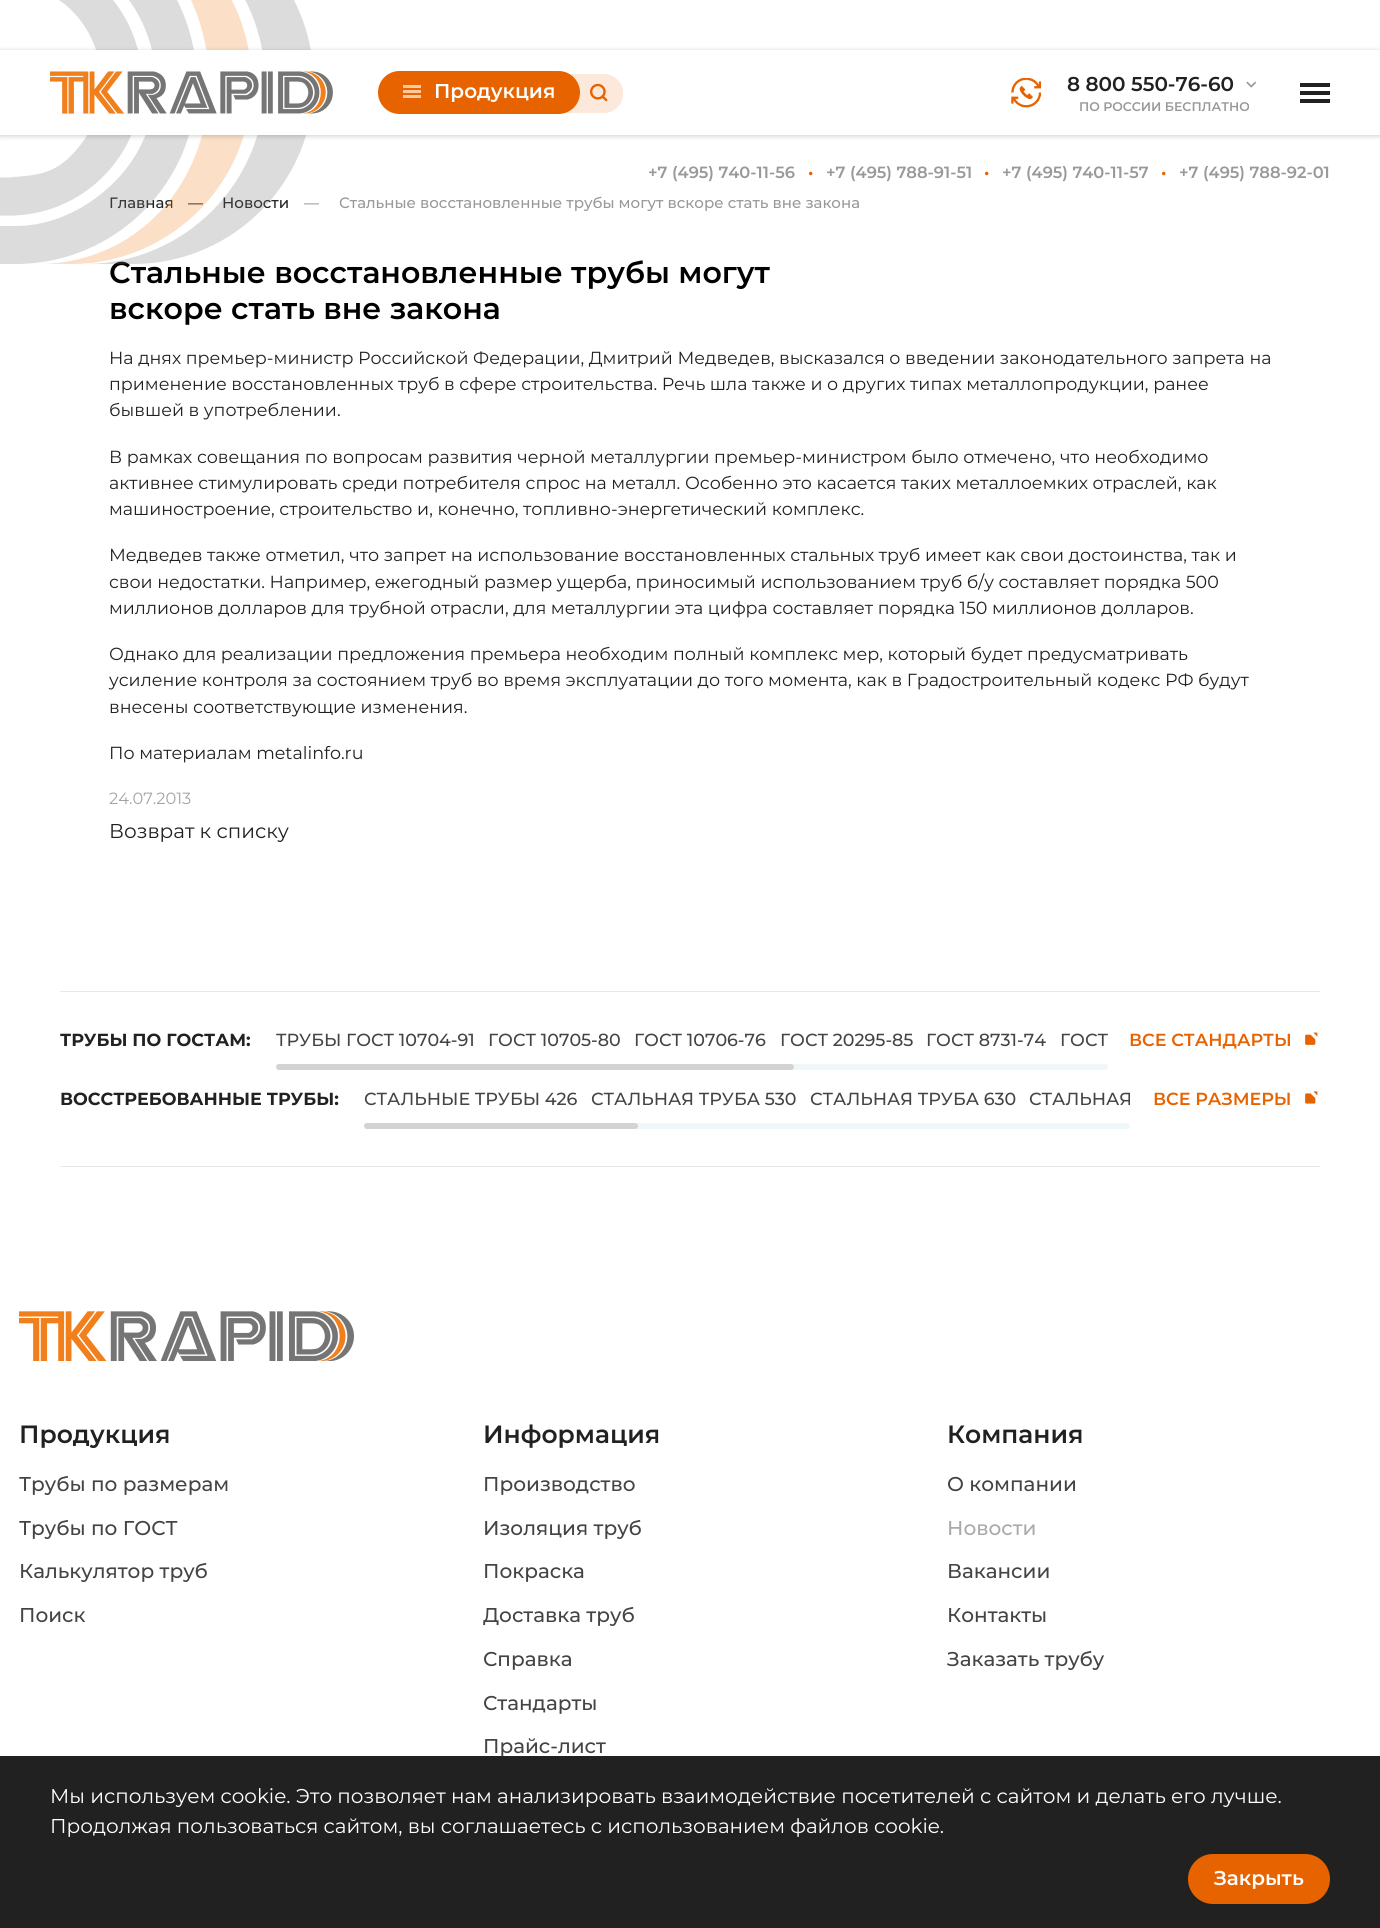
import math
import cairo


def round_path(ctx, x, y, w, h, r):
	ctx.new_sub_path()
	for i, (u, v) in enumerate([(x + w - r, y + h - r), (x + r, y + h - r), (x + r, y + r), (x + w - r, y + r)]):
		ctx.arc(u, v, r, i * math.pi / 2, (i + 1) * math.pi / 2)
	ctx.close_path()

def blur_box(ctx, x, y, w, h, r, blur, alpha):
	ctx.push_group_with_content(cairo.CONTENT_ALPHA)
	ctx.set_operator(cairo.OPERATOR_SOURCE)
	for i in range(15, -16, -2):
		e = blur * i / 6
		if min(w, h) + 2 * e > 0:
			ctx.set_source_rgba(0, 0, 0, alpha * math.erfc((i - 1) / 8.5) / 2)
			round_path(ctx, x - e, y - e, w + 2 * e, h + 2 * e, max(0, min(r + e + blur * .6, min(w, h) / 2 + e)))
			ctx.fill()
	ctx.mask(ctx.pop_group())

def paste(ctx, path, x, y, w, h):
	ctx.save()
	ctx.set_source_surface(cairo.ImageSurface.create_from_png(path), x, y)
	ctx.rectangle(x, y, w, h)
	ctx.fill()
	ctx.restore()

def draw(ctx):
	ctx.set_source_rgb(1, 1, 1)
	ctx.paint()
	ctx.select_font_face('Montserrat Medium')
	ctx.set_font_size(15)
	ctx.set_source_rgb(0.129, 0.129, 0.129)
	for x, y, s in [
		(109, 208, 'Главная'),
		(188, 208, '—'),
		(222, 208, 'Новости'),
	]:
		ctx.move_to(x, y)
		ctx.show_text(s)
	ctx.set_source_rgb(0.6, 0.6, 0.6)
	ctx.move_to(304, 208)
	ctx.show_text('—')
	ctx.select_font_face('Montserrat SemiBold')
	ctx.set_font_size(30)
	ctx.set_source_rgb(0, 0, 0)
	ctx.move_to(109, 283)
	ctx.show_text('Стальные восстановленные трубы могут')
	paste(ctx, 'media/1.png', 0, 0, 311, 264)
	ctx.set_source_rgb(0, 0, 0)
	blur_box(ctx, 0, 51, 1380, 85, 0, 2.5, 0.2)
	ctx.set_source_rgb(1, 1, 1)
	ctx.rectangle(0, 50, 1380, 85)
	ctx.fill()
	paste(ctx, 'media/2.png', 50, 71, 283, 43)
	ctx.set_source_rgb(0.992, 0.914, 0.859)
	round_path(ctx, 493, 74, 130, 39, 19.5)
	ctx.fill()
	paste(ctx, 'media/3.png', 590, 83, 18, 19)
	round_path(ctx, 493.5, 74.5, 129, 38, 19)
	ctx.set_line_width(1)
	ctx.stroke()
	ctx.set_source_rgb(0.906, 0.388, 0)
	round_path(ctx, 378, 71, 202, 43, 21.5)
	ctx.fill()
	ctx.set_source_rgb(1, 0.784, 0.62)
	ctx.rectangle(403, 85, 18, 3)
	ctx.rectangle(403, 90, 18, 3)
	ctx.rectangle(403, 95, 18, 3)
	ctx.fill()
	ctx.set_font_size(20)
	ctx.set_source_rgb(1, 1, 1)
	ctx.move_to(434, 98)
	ctx.show_text('Продукция')
	paste(ctx, 'media/4.png', 1011, 78, 30, 30)
	ctx.set_source_rgb(0.129, 0.129, 0.129)
	ctx.move_to(1067, 91)
	ctx.show_text('8 800 550-76-60')
	paste(ctx, 'media/5.png', 1246, 81, 10, 7)
	ctx.set_font_size(12.5)
	ctx.set_source_rgb(0.6, 0.6, 0.6)
	ctx.move_to(1079, 111)
	ctx.show_text('ПО РОССИИ БЕСПЛАТНО')
	ctx.set_source_rgb(0.129, 0.129, 0.129)
	ctx.rectangle(1300, 83, 30, 4)
	ctx.rectangle(1300, 91, 30, 4)
	ctx.rectangle(1300, 99, 30, 4)
	ctx.fill()
	ctx.set_font_size(16.25)
	ctx.set_source_rgb(0.6, 0.6, 0.6)
	ctx.move_to(648, 178)
	ctx.show_text('+7 (495) 740-11-56')
	ctx.set_source_rgb(0.906, 0.388, 0)
	ctx.move_to(808, 178)
	ctx.show_text('•')
	ctx.set_source_rgb(0.6, 0.6, 0.6)
	ctx.move_to(826, 178)
	ctx.show_text('+7 (495) 788-91-51')
	ctx.set_source_rgb(0.906, 0.388, 0)
	ctx.move_to(984, 178)
	ctx.show_text('•')
	ctx.set_source_rgb(0.6, 0.6, 0.6)
	ctx.move_to(1002, 178)
	ctx.show_text('+7 (495) 740-11-57')
	ctx.set_source_rgb(0.906, 0.388, 0)
	ctx.move_to(1161, 178)
	ctx.show_text('•')
	ctx.set_source_rgb(0.6, 0.6, 0.6)
	ctx.move_to(1179, 178)
	ctx.show_text('+7 (495) 788-92-01')
	ctx.select_font_face('Montserrat Medium')
	ctx.set_font_size(15)
	ctx.move_to(339, 208)
	ctx.show_text('Стальные восстановленные трубы могут вскоре стать вне закона')
	ctx.select_font_face('Montserrat SemiBold')
	ctx.set_font_size(30)
	ctx.set_source_rgb(0, 0, 0)
	ctx.move_to(109, 319)
	ctx.show_text('вскоре стать вне закона')
	ctx.select_font_face('Montserrat')
	ctx.set_font_size(17.5)
	ctx.set_source_rgb(0.129, 0.129, 0.129)
	for x, y, s in [
		(109, 364, 'На днях премьер-министр Российской Федерации, Дмитрий Медведев, высказался о введении законодательного запрета на'),
		(109, 390, 'применение восстановленных труб в сфере строительства. Речь шла также и о других типах металлопродукции, ранее'),
		(109, 416, 'бывшей в употреблении.'),
		(109, 463, 'В рамках совещания по вопросам развития черной металлургии премьер-министром было отмечено, что необходимо'),
		(109, 489, 'активнее стимулировать среди потребителя спрос на металл. Особенно это касается таких металлоемких отраслей, как'),
		(109, 515, 'машиностроение, строительство и, конечно, топливно-энергетический комплекс.'),
		(109, 561, 'Медведев также отметил, что запрет на использование восстановленных стальных труб имеет как свои достоинства, так и'),
		(109, 588, 'свои недостатки. Например, ежегодный размер ущерба, приносимый использованием труб б/у составляет порядка 500'),
		(109, 614, 'миллионов долларов для трубной отрасли, для металлургии эта цифра составляет порядка 150 миллионов долларов.'),
		(109, 660, 'Однако для реализации предложения премьера необходим полный комплекс мер, который будет предусматривать'),
		(109, 686, 'усиление контроля за состоянием труб во время эксплуатации до того момента, как в Градостроительный кодекс РФ будут'),
		(109, 713, 'внесены соответствующие изменения.'),
		(109, 759, 'По материалам metalinfo.ru'),
	]:
		ctx.move_to(x, y)
		ctx.show_text(s)
	ctx.set_font_size(16.25)
	ctx.set_source_rgb(0.643, 0.643, 0.643)
	ctx.move_to(109, 804)
	ctx.show_text('24.07.2013')
	ctx.set_font_size(20)
	ctx.set_source_rgb(0.129, 0.129, 0.129)
	ctx.move_to(109, 838)
	ctx.show_text('Возврат к списку')
	ctx.set_source_rgb(0.91, 0.91, 0.91)
	ctx.rectangle(60, 991, 1260, 1)
	ctx.fill()
	ctx.select_font_face('Montserrat', cairo.FONT_SLANT_NORMAL, cairo.FONT_WEIGHT_BOLD)
	ctx.set_font_size(17.5)
	ctx.set_source_rgb(0.129, 0.129, 0.129)
	ctx.move_to(60, 1046)
	ctx.show_text('ТРУБЫ ПО ГОСТАМ:')
	ctx.select_font_face('Montserrat Medium')
	ctx.set_source_rgb(0.267, 0.267, 0.267)
	for x, y, s in [
		(276, 1046, 'ТРУБЫ ГОСТ 10704-91'),
		(488, 1046, 'ГОСТ 10705-80'),
		(634, 1046, 'ГОСТ 10706-76'),
		(780, 1046, 'ГОСТ 20295-85'),
		(926, 1046, 'ГОСТ 8731-74'),
		(1060, 1046, 'ГОСТ'),
	]:
		ctx.move_to(x, y)
		ctx.show_text(s)
	ctx.set_source_rgb(0.941, 0.965, 0.98)
	round_path(ctx, 276, 1064, 832, 6, 3)
	ctx.fill()
	ctx.set_source_rgb(0.827, 0.827, 0.827)
	round_path(ctx, 276, 1064, 518, 6, 3)
	ctx.fill()
	ctx.select_font_face('Montserrat SemiBold')
	ctx.set_source_rgb(0.906, 0.388, 0)
	ctx.move_to(1129, 1046)
	ctx.show_text('ВСЕ СТАНДАРТЫ')
	paste(ctx, 'media/6.png', 1305, 1032, 13, 13)
	ctx.select_font_face('Montserrat', cairo.FONT_SLANT_NORMAL, cairo.FONT_WEIGHT_BOLD)
	ctx.set_source_rgb(0.129, 0.129, 0.129)
	ctx.move_to(60, 1105)
	ctx.show_text('ВОССТРЕБОВАННЫЕ ТРУБЫ:')
	ctx.select_font_face('Montserrat Medium')
	ctx.set_source_rgb(0.267, 0.267, 0.267)
	for x, y, s in [
		(364, 1105, 'СТАЛЬНЫЕ ТРУБЫ 426'),
		(591, 1105, 'СТАЛЬНАЯ ТРУБА 530'),
		(810, 1105, 'СТАЛЬНАЯ ТРУБА 630'),
	]:
		ctx.move_to(x, y)
		ctx.show_text(s)
	ctx.save()
	ctx.rectangle(364, 1089, 766, 21)
	ctx.clip()
	ctx.move_to(1029, 1105)
	ctx.show_text('СТАЛЬНАЯ')
	ctx.restore()
	ctx.set_source_rgb(0.941, 0.965, 0.98)
	round_path(ctx, 364, 1123, 766, 6, 3)
	ctx.fill()
	ctx.set_source_rgb(0.827, 0.827, 0.827)
	round_path(ctx, 364, 1123, 274, 6, 3)
	ctx.fill()
	ctx.select_font_face('Montserrat SemiBold')
	ctx.set_source_rgb(0.906, 0.388, 0)
	ctx.move_to(1153, 1105)
	ctx.show_text('ВСЕ РАЗМЕРЫ')
	paste(ctx, 'media/7.png', 1305, 1091, 13, 13)
	ctx.set_source_rgb(0.91, 0.91, 0.91)
	ctx.rectangle(60, 1166, 1260, 1)
	ctx.fill()
	paste(ctx, 'media/8.png', 19, 1311, 335, 50)
	ctx.set_font_size(25)
	ctx.set_source_rgb(0.129, 0.129, 0.129)
	ctx.move_to(19, 1443)
	ctx.show_text('Продукция')
	ctx.select_font_face('Montserrat Medium')
	ctx.set_font_size(20)
	ctx.set_source_rgb(0.267, 0.267, 0.267)
	for x, y, s in [
		(19, 1491, 'Трубы по размерам'),
		(19, 1535, 'Трубы по ГОСТ'),
		(19, 1578, 'Калькулятор труб'),
		(19, 1622, 'Поиск'),
	]:
		ctx.move_to(x, y)
		ctx.show_text(s)
	ctx.select_font_face('Montserrat SemiBold')
	ctx.set_font_size(25)
	ctx.set_source_rgb(0.129, 0.129, 0.129)
	ctx.move_to(483, 1443)
	ctx.show_text('Информация')
	ctx.select_font_face('Montserrat Medium')
	ctx.set_font_size(20)
	ctx.set_source_rgb(0.267, 0.267, 0.267)
	for x, y, s in [
		(483, 1491, 'Производство'),
		(483, 1535, 'Изоляция труб'),
		(483, 1578, 'Покраска'),
		(483, 1622, 'Доставка труб'),
		(483, 1666, 'Справка'),
		(483, 1710, 'Стандарты'),
		(483, 1753, 'Прайс-лист'),
	]:
		ctx.move_to(x, y)
		ctx.show_text(s)
	ctx.select_font_face('Montserrat SemiBold')
	ctx.set_font_size(25)
	ctx.set_source_rgb(0.129, 0.129, 0.129)
	ctx.move_to(947, 1443)
	ctx.show_text('Компания')
	ctx.select_font_face('Montserrat Medium')
	ctx.set_font_size(20)
	ctx.set_source_rgb(0.267, 0.267, 0.267)
	ctx.move_to(947, 1491)
	ctx.show_text('О компании')
	ctx.set_source_rgb(0.667, 0.667, 0.667)
	ctx.move_to(947, 1535)
	ctx.show_text('Новости')
	ctx.set_source_rgb(0.267, 0.267, 0.267)
	for x, y, s in [
		(947, 1578, 'Вакансии'),
		(947, 1622, 'Контакты'),
		(947, 1666, 'Заказать трубу'),
	]:
		ctx.move_to(x, y)
		ctx.show_text(s)
	ctx.set_source_rgb(0.129, 0.129, 0.129)
	ctx.rectangle(0, 1756, 1380, 172)
	ctx.fill()
	ctx.select_font_face('Montserrat')
	ctx.set_source_rgb(1, 1, 1)
	ctx.move_to(50, 1803)
	ctx.show_text('Мы используем cookie. Это позволяет нам анализировать взаимодействие посетителей с сайтом и делать его лучше.')
	ctx.move_to(50, 1833)
	ctx.show_text('Продолжая пользоваться сайтом, вы соглашаетесь с использованием файлов cookie.')
	ctx.set_source_rgb(0.906, 0.388, 0)
	round_path(ctx, 1188, 1854, 142, 50, 25)
	ctx.fill()
	ctx.select_font_face('Montserrat SemiBold')
	ctx.set_source_rgb(1, 1, 1)
	ctx.move_to(1214, 1885)
	ctx.show_text('Закрыть')


surface = cairo.ImageSurface(cairo.FORMAT_RGB24, 1380, 1928)
ctx = cairo.Context(surface)
options = cairo.FontOptions()
options.set_hint_metrics(cairo.HINT_METRICS_OFF)
options.set_hint_style(cairo.HINT_STYLE_NONE)
ctx.set_font_options(options)
ctx.set_miter_limit(4)
draw(ctx)
surface.write_to_png('image.png')
